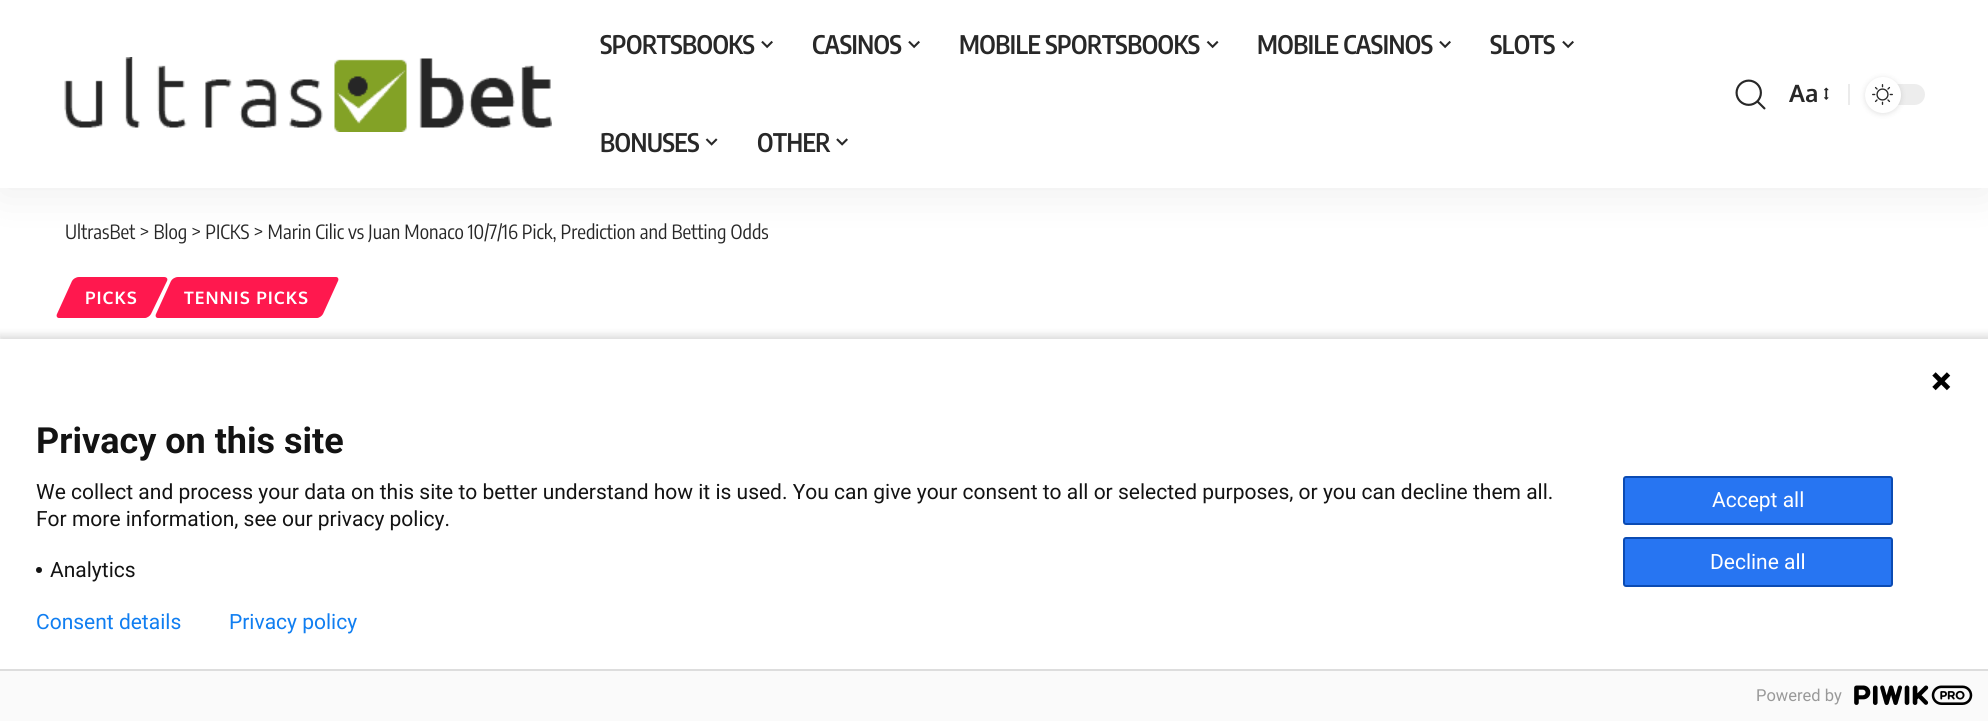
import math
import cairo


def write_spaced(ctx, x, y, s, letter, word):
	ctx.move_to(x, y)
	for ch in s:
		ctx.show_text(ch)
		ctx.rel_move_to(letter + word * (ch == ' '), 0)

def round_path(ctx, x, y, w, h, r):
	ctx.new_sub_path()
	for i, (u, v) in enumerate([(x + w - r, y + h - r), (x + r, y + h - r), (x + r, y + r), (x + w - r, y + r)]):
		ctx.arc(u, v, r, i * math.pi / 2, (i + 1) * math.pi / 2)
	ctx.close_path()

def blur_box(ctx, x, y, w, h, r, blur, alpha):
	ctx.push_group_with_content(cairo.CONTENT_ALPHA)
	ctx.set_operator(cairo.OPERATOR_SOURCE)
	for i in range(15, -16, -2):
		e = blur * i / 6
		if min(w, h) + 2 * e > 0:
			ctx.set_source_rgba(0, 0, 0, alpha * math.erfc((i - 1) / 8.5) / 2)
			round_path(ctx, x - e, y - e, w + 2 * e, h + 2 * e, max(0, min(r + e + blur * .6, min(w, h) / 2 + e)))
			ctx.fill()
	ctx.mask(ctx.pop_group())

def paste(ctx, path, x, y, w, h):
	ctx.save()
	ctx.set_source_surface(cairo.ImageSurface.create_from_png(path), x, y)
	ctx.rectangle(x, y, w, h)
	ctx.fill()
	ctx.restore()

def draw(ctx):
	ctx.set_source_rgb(1, 1, 1)
	ctx.paint()
	ctx.set_source_rgb(0, 0, 0)
	blur_box(ctx, 0, 6, 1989, 188, 0, 22.5, 0.07)
	ctx.set_source_rgb(1, 1, 1)
	ctx.rectangle(0, 0, 1988, 188)
	ctx.fill()
	paste(ctx, 'media/1.png', 64, 57, 488, 75)
	ctx.select_font_face('Encode Sans Condensed SemiBold')
	ctx.set_font_size(25.5)
	ctx.set_source_rgb(0.157, 0.157, 0.157)
	write_spaced(ctx, 600, 54, 'SPORTSBOOKS', -0.5, 0)
	paste(ctx, 'media/2.png', 761, 40, 12, 9)
	write_spaced(ctx, 812, 54, 'CASINOS', -0.5, 0)
	paste(ctx, 'media/2.png', 908, 40, 12, 9)
	write_spaced(ctx, 959, 54, 'MOBILE SPORTSBOOKS', -0.5, 0)
	paste(ctx, 'media/3.png', 1206, 40, 13, 9)
	write_spaced(ctx, 1257, 54, 'MOBILE CASINOS', -0.5, 0)
	paste(ctx, 'media/2.png', 1439, 40, 12, 9)
	write_spaced(ctx, 1490, 54, 'SLOTS', -0.5, 0)
	paste(ctx, 'media/2.png', 1562, 40, 12, 9)
	write_spaced(ctx, 600, 152, 'BONUSES', -0.5, 0)
	paste(ctx, 'media/4.png', 705, 138, 13, 8)
	write_spaced(ctx, 757, 152, 'OTHER', -0.5, 0)
	paste(ctx, 'media/5.png', 836, 138, 12, 8)
	paste(ctx, 'media/6.png', 1735, 79, 31, 31)
	ctx.select_font_face('Oxygen', cairo.FONT_SLANT_NORMAL, cairo.FONT_WEIGHT_BOLD)
	ctx.set_font_size(24)
	ctx.move_to(1789, 102)
	ctx.show_text('Aa')
	paste(ctx, 'media/7.png', 1824, 87, 5, 13)
	ctx.set_source_rgb(0.918, 0.918, 0.918)
	ctx.rectangle(1848, 84, 2, 21)
	ctx.fill()
	ctx.set_source_rgb(0.929, 0.929, 0.929)
	round_path(ctx, 1865, 84, 60, 21, 10.5)
	ctx.fill()
	ctx.set_source_rgb(0, 0, 0)
	blur_box(ctx, 1865, 78, 36, 36, 18, 3, 0.12)
	ctx.set_source_rgb(1, 1, 1)
	ctx.arc(1883, 95, 18, 0, 2 * math.pi)
	ctx.fill()
	paste(ctx, 'media/8.png', 1872, 84, 21, 21)
	ctx.select_font_face('Encode Sans Condensed')
	ctx.set_font_size(19.5)
	ctx.set_source_rgb(0.157, 0.157, 0.157)
	ctx.move_to(65, 239)
	ctx.show_text('UltrasBet > Blog > PICKS > Marin Cilic vs Juan Monaco 10/7/16 Pick, Prediction and Betting Odds')
	ctx.set_source_rgb(1, 0.094, 0.306)
	ctx.new_path()
	ctx.move_to(79, 277)
	ctx.line_to(164, 277)
	ctx.curve_to(167, 277, 168, 279, 167, 281)
	ctx.line_to(151, 314)
	ctx.curve_to(150, 316, 147, 318, 145, 318)
	ctx.line_to(59, 318)
	ctx.curve_to(57, 318, 56, 316, 57, 314)
	ctx.line_to(72, 281)
	ctx.curve_to(73, 279, 76, 277, 79, 277)
	ctx.close_path()
	ctx.fill()
	ctx.select_font_face('Oxygen', cairo.FONT_SLANT_NORMAL, cairo.FONT_WEIGHT_BOLD)
	ctx.set_font_size(17.25)
	ctx.set_source_rgb(1, 1, 1)
	write_spaced(ctx, 85, 304, 'PICKS', 1, 0)
	ctx.set_source_rgb(1, 0.094, 0.306)
	ctx.new_path()
	ctx.move_to(178, 277)
	ctx.line_to(336, 277)
	ctx.curve_to(338, 277, 339, 279, 338, 281)
	ctx.line_to(323, 314)
	ctx.curve_to(322, 316, 319, 318, 317, 318)
	ctx.line_to(158, 318)
	ctx.curve_to(156, 318, 155, 316, 156, 314)
	ctx.line_to(171, 281)
	ctx.curve_to(172, 279, 175, 277, 178, 277)
	ctx.close_path()
	ctx.fill()
	ctx.set_source_rgb(1, 1, 1)
	write_spaced(ctx, 184, 304, 'TENNIS PICKS', 1, 0)
	ctx.set_source_rgb(0, 0, 0)
	blur_box(ctx, -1, 335, 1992, 385, 0, 4, 0.14)
	ctx.set_source_rgb(1, 1, 1)
	ctx.rectangle(0, 339, 1988, 330)
	ctx.fill()
	paste(ctx, 'media/9.png', 1932, 372, 19, 19)
	ctx.select_font_face('Roboto', cairo.FONT_SLANT_NORMAL, cairo.FONT_WEIGHT_BOLD)
	ctx.set_font_size(36)
	ctx.set_source_rgb(0.075, 0.075, 0.075)
	ctx.move_to(36, 453)
	ctx.show_text('Privacy on this site')
	ctx.select_font_face('Roboto')
	ctx.set_font_size(21)
	ctx.move_to(36, 499)
	ctx.show_text('We collect and process your data on this site to better understand how it is used. You can give your consent to all or selected purposes, or you can decline them all.')
	ctx.move_to(36, 526)
	ctx.show_text('For more information, see our privacy policy.')
	ctx.new_path()
	ctx.arc(39, 570, 3, 0, 2 * math.pi)
	ctx.fill()
	ctx.move_to(50, 577)
	ctx.show_text('Analytics')
	ctx.set_source_rgb(0.153, 0.459, 0.949)
	round_path(ctx, 1624, 477, 268, 47, 2)
	ctx.fill_preserve()
	ctx.set_source_rgb(0.043, 0.294, 0.702)
	ctx.stroke()
	ctx.set_source_rgb(1, 1, 1)
	ctx.move_to(1712, 507)
	ctx.show_text('Accept all')
	ctx.set_source_rgb(0.153, 0.459, 0.949)
	round_path(ctx, 1624, 538, 268, 48, 2)
	ctx.fill_preserve()
	ctx.set_source_rgb(0.043, 0.294, 0.702)
	ctx.stroke()
	ctx.set_source_rgb(1, 1, 1)
	ctx.move_to(1710, 569)
	ctx.show_text('Decline all')
	ctx.set_source_rgb(0.063, 0.494, 0.945)
	ctx.move_to(36, 629)
	ctx.show_text('Consent details')
	ctx.move_to(229, 629)
	ctx.show_text('Privacy policy')
	ctx.set_source_rgb(0.98, 0.98, 0.98)
	ctx.rectangle(0, 671, 1988, 50)
	ctx.fill()
	ctx.set_source_rgb(0.867, 0.867, 0.867)
	ctx.rectangle(0, 669, 1988, 2)
	ctx.fill()
	ctx.set_font_size(16.5)
	ctx.set_source_rgb(0.6, 0.6, 0.6)
	ctx.move_to(1756, 701)
	ctx.show_text('Powered by')
	paste(ctx, 'media/10.png', 1854, 685, 119, 20)


surface = cairo.ImageSurface(cairo.FORMAT_RGB24, 1988, 721)
ctx = cairo.Context(surface)
options = cairo.FontOptions()
options.set_hint_metrics(cairo.HINT_METRICS_OFF)
options.set_hint_style(cairo.HINT_STYLE_NONE)
ctx.set_font_options(options)
ctx.set_miter_limit(4)
draw(ctx)
surface.write_to_png('image.png')
